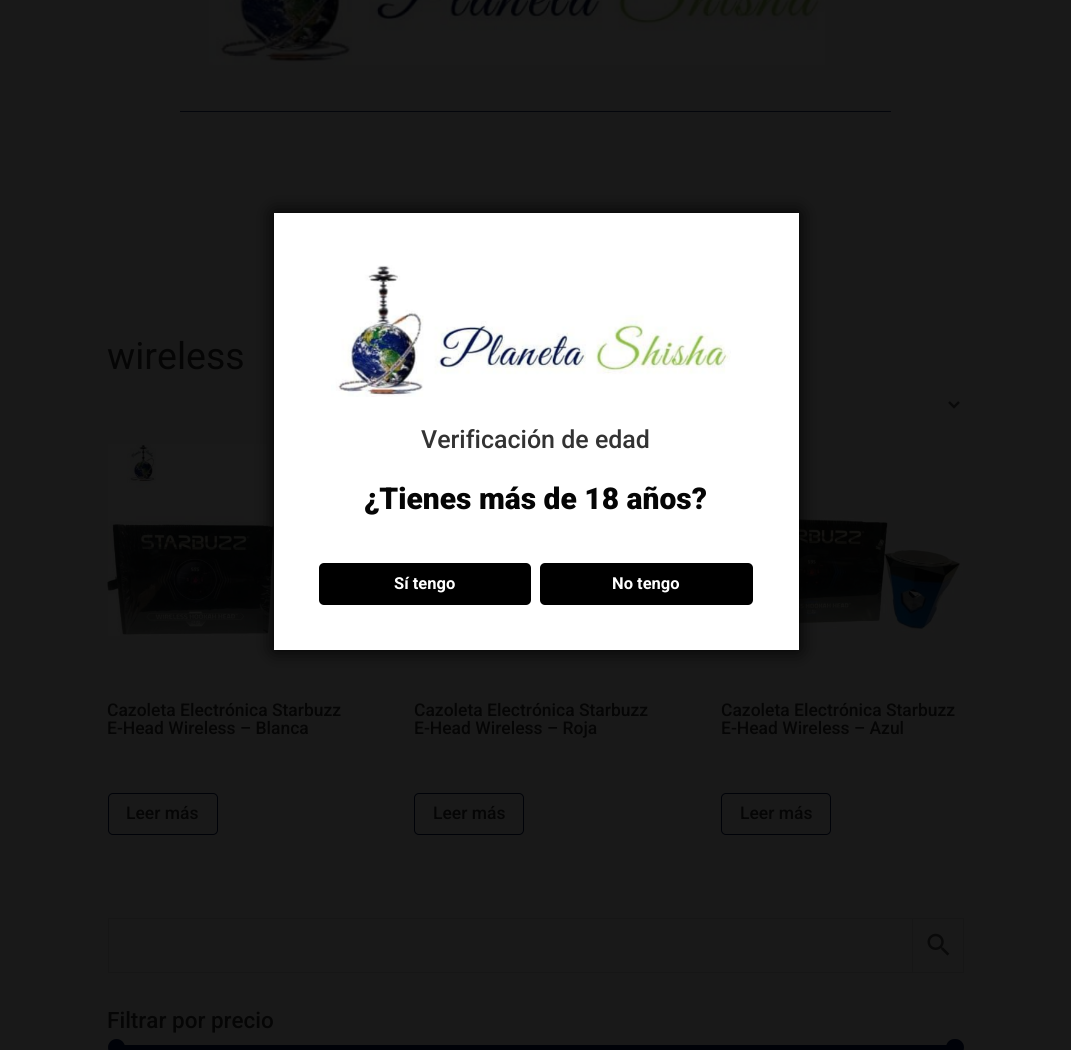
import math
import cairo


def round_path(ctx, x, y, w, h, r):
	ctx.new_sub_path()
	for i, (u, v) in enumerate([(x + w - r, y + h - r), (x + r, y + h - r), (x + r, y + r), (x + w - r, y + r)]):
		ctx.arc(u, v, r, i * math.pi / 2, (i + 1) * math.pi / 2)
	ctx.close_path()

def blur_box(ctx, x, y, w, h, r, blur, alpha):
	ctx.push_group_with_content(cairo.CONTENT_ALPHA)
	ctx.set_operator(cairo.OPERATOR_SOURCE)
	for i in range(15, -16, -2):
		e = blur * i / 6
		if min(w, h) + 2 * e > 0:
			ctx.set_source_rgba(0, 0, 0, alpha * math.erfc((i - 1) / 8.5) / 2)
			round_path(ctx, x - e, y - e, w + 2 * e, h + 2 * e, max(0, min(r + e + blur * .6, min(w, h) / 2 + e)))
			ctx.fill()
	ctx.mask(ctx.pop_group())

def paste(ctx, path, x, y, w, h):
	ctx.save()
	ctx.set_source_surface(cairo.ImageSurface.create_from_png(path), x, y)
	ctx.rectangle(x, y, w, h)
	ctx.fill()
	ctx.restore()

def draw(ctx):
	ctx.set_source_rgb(0.098, 0.098, 0.098)
	ctx.paint()
	paste(ctx, 'media/1.png', 209, 0, 616, 65)
	ctx.set_source_rgb(0.016, 0.024, 0.047)
	ctx.rectangle(180, 111, 711, 1)
	ctx.fill()
	ctx.select_font_face('Roboto')
	ctx.set_font_size(37.5)
	ctx.set_source_rgb(0.02, 0.02, 0.02)
	ctx.move_to(107, 369)
	ctx.show_text('wireless')
	ctx.new_path()
	ctx.move_to(949, 402)
	ctx.line_to(954, 407)
	ctx.line_to(959, 402)
	ctx.set_source_rgb(0.039, 0.039, 0.039)
	ctx.set_line_width(2.5)
	ctx.stroke()
	paste(ctx, 'media/2.png', 107, 444, 167, 192)
	ctx.select_font_face('Roboto Medium')
	ctx.set_font_size(17.5)
	ctx.set_source_rgb(0.02, 0.02, 0.02)
	ctx.move_to(107, 716)
	ctx.show_text('Cazoleta Electrónica Starbuzz')
	ctx.move_to(107, 734)
	ctx.show_text('E-Head Wireless – Blanca')
	round_path(ctx, 108.5, 793.5, 109, 41, 4.5)
	ctx.set_source_rgb(0, 0.008, 0.035)
	ctx.set_line_width(1)
	ctx.stroke()
	ctx.set_source_rgb(0.02, 0.02, 0.02)
	for x, y, s in [
		(126, 819, 'Leer más'),
		(414, 716, 'Cazoleta Electrónica Starbuzz'),
		(414, 734, 'E-Head Wireless – Roja'),
	]:
		ctx.move_to(x, y)
		ctx.show_text(s)
	round_path(ctx, 414.5, 793.5, 109, 41, 4.5)
	ctx.set_source_rgb(0, 0.008, 0.035)
	ctx.stroke()
	ctx.set_source_rgb(0.02, 0.02, 0.02)
	ctx.move_to(433, 819)
	ctx.show_text('Leer más')
	paste(ctx, 'media/3.png', 799, 444, 164, 189)
	ctx.move_to(721, 716)
	ctx.show_text('Cazoleta Electrónica Starbuzz')
	ctx.move_to(721, 734)
	ctx.show_text('E-Head Wireless – Azul')
	round_path(ctx, 721.5, 793.5, 109, 41, 4.5)
	ctx.set_source_rgb(0, 0.008, 0.035)
	ctx.stroke()
	ctx.set_source_rgb(0.02, 0.02, 0.02)
	ctx.move_to(740, 819)
	ctx.show_text('Leer más')
	ctx.rectangle(911.5, 918.5, 52, 54)
	ctx.set_source_rgb(0.086, 0.086, 0.086)
	ctx.stroke()
	ctx.set_source_rgb(0.098, 0.098, 0.098)
	ctx.rectangle(911, 919, 1, 53)
	ctx.fill()
	ctx.rectangle(108.5, 918.5, 804, 54)
	ctx.set_source_rgb(0.086, 0.086, 0.086)
	ctx.stroke()
	paste(ctx, 'media/4.png', 927, 933, 23, 23)
	ctx.set_font_size(22.5)
	ctx.set_source_rgb(0.02, 0.02, 0.02)
	ctx.move_to(107, 1028)
	ctx.show_text('Filtrar por precio')
	ctx.set_source_rgb(0, 0.008, 0.035)
	ctx.rectangle(116, 1045, 839, 5)
	ctx.fill()
	ctx.arc(116.5, 1047.5, 8.5, 0, 2 * math.pi)
	ctx.fill()
	round_path(ctx, 946, 1039, 18, 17, 8.5)
	ctx.fill()
	ctx.set_source_rgb(0, 0, 0)
	blur_box(ctx, 274, 213, 525, 437, 0, 9.5, 1)
	ctx.set_source_rgb(1, 1, 1)
	ctx.rectangle(274, 213, 525, 437)
	ctx.fill()
	paste(ctx, 'media/5.png', 331, 265, 400, 132)
	ctx.set_font_size(25)
	ctx.set_source_rgb(0.2, 0.2, 0.2)
	ctx.move_to(421, 448)
	ctx.show_text('Verificación de edad')
	ctx.select_font_face('Roboto Black')
	ctx.set_font_size(30)
	ctx.set_source_rgb(0.02, 0.02, 0.02)
	ctx.move_to(364, 509)
	ctx.show_text('¿Tienes más de 18 años?')
	ctx.set_source_rgb(0, 0, 0)
	round_path(ctx, 319, 563, 212, 42, 5)
	ctx.fill()
	ctx.select_font_face('Roboto', cairo.FONT_SLANT_NORMAL, cairo.FONT_WEIGHT_BOLD)
	ctx.set_font_size(16.5)
	ctx.set_source_rgb(1, 1, 1)
	ctx.move_to(394, 589)
	ctx.show_text('Sí tengo')
	ctx.set_source_rgb(0, 0, 0)
	round_path(ctx, 540, 563, 213, 42, 5)
	ctx.fill()
	ctx.set_source_rgb(1, 1, 1)
	ctx.move_to(612, 589)
	ctx.show_text('No tengo')


surface = cairo.ImageSurface(cairo.FORMAT_RGB24, 1071, 1050)
ctx = cairo.Context(surface)
options = cairo.FontOptions()
options.set_hint_metrics(cairo.HINT_METRICS_OFF)
options.set_hint_style(cairo.HINT_STYLE_NONE)
ctx.set_font_options(options)
ctx.set_miter_limit(4)
draw(ctx)
surface.write_to_png('image.png')
